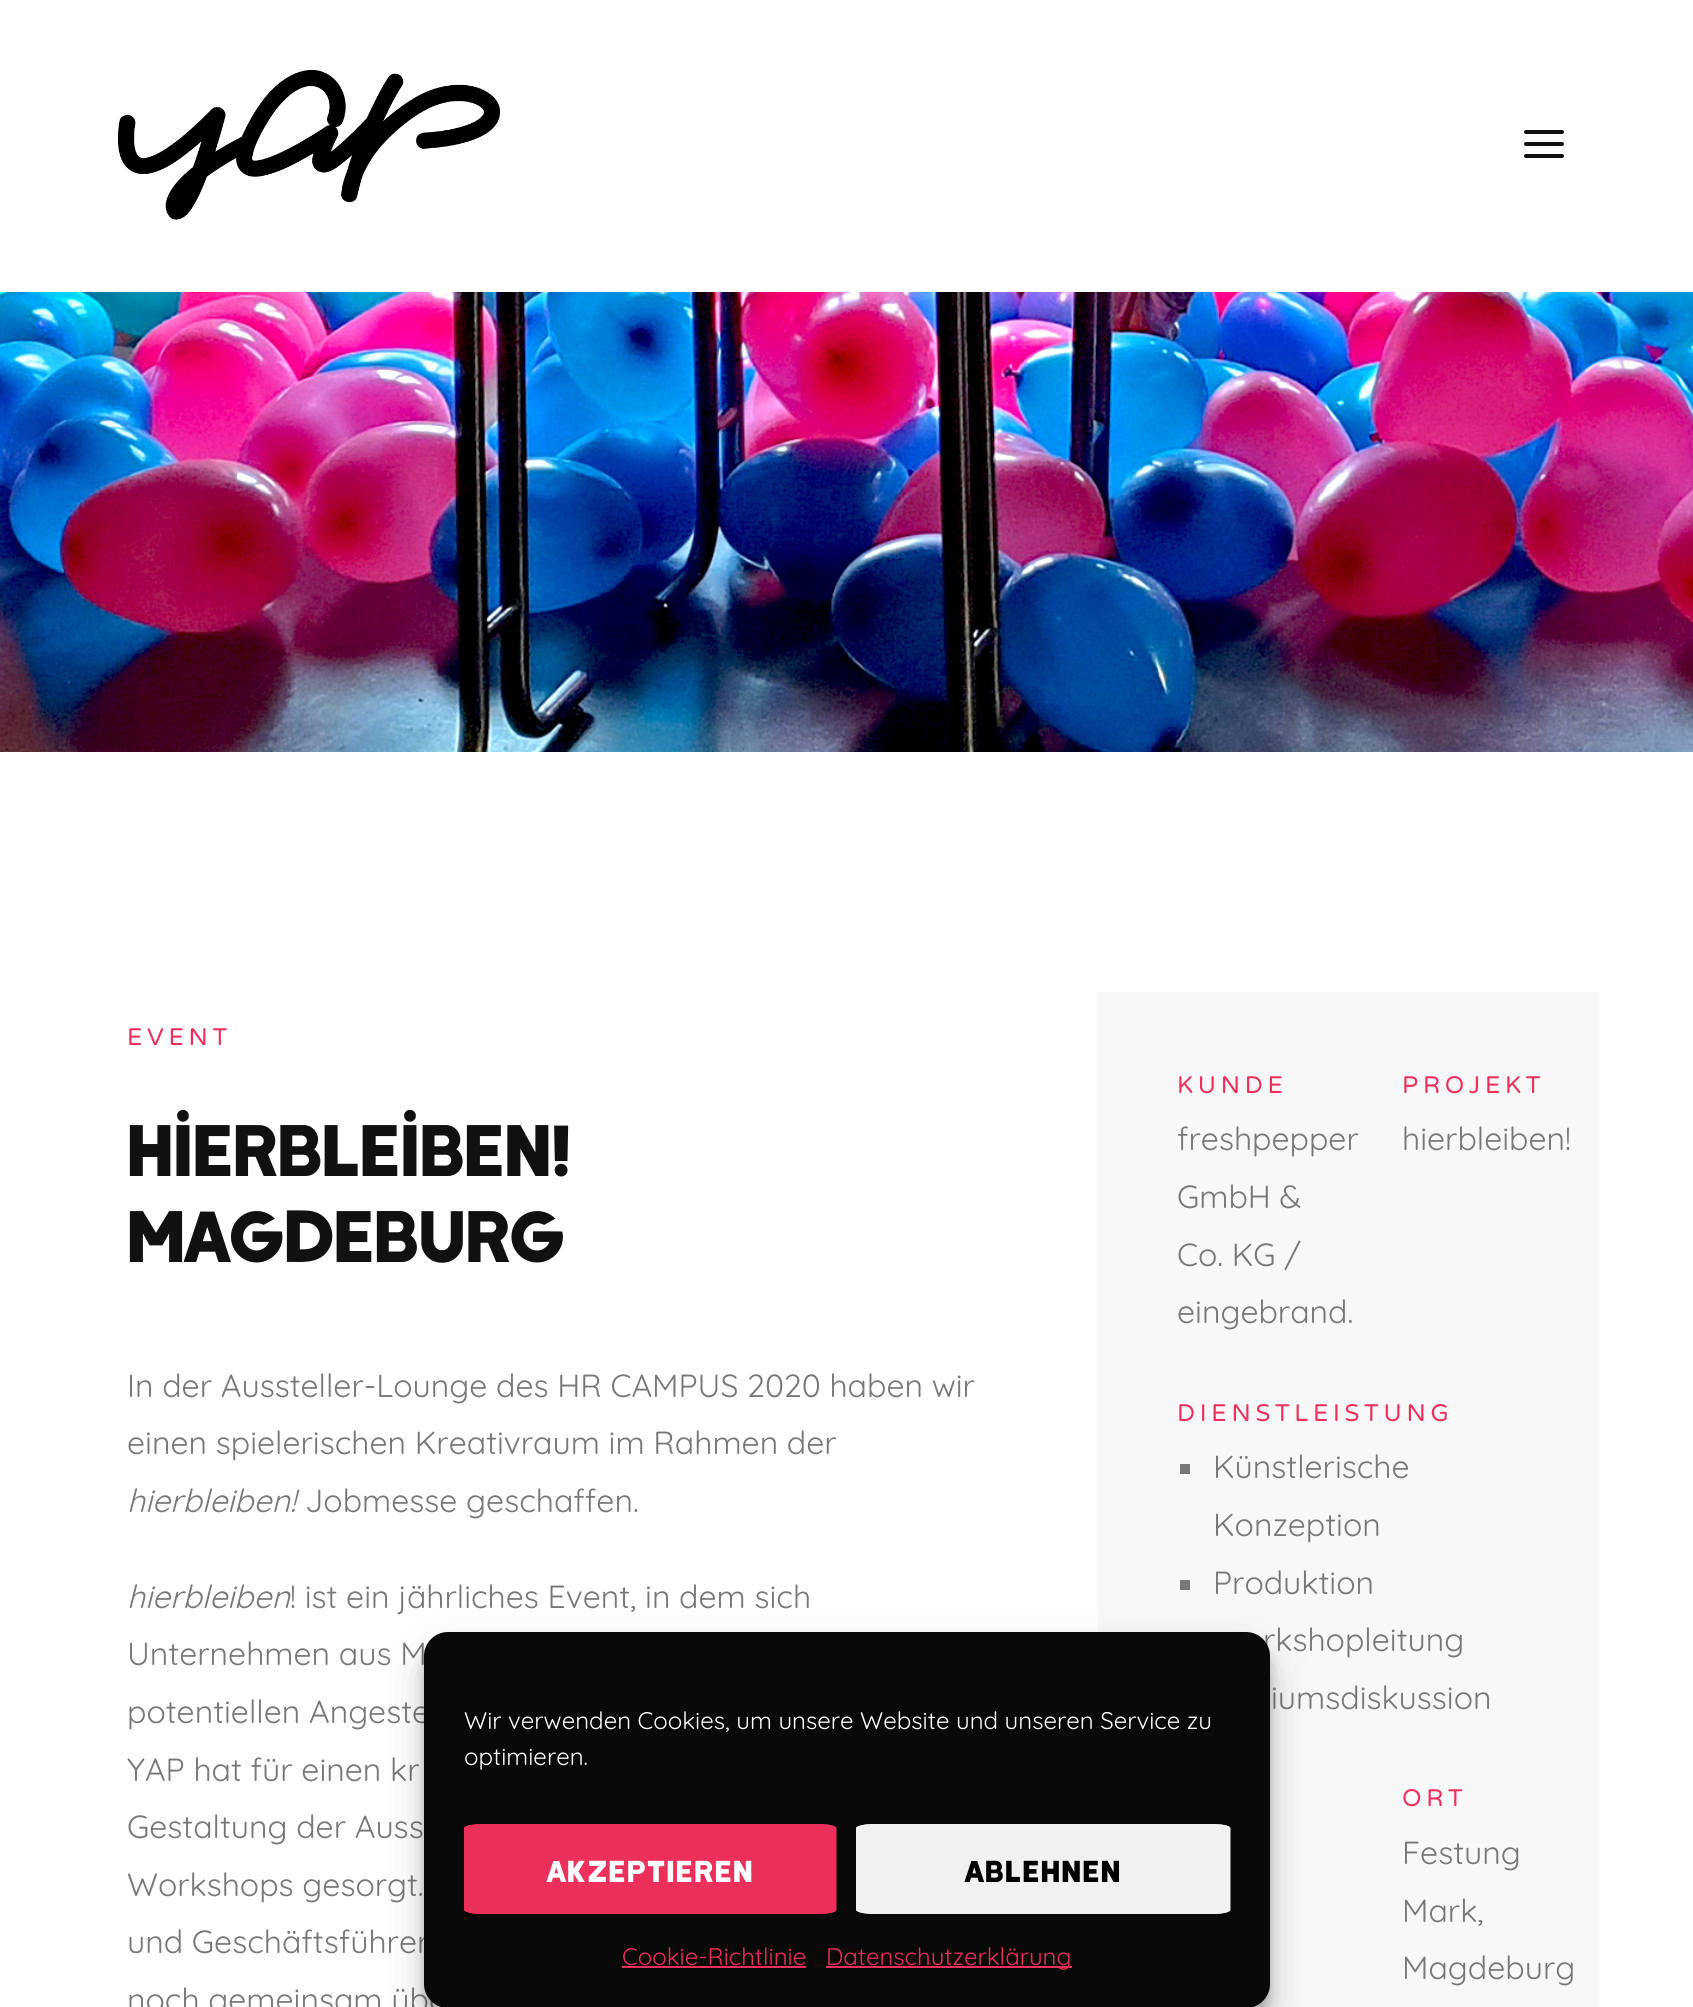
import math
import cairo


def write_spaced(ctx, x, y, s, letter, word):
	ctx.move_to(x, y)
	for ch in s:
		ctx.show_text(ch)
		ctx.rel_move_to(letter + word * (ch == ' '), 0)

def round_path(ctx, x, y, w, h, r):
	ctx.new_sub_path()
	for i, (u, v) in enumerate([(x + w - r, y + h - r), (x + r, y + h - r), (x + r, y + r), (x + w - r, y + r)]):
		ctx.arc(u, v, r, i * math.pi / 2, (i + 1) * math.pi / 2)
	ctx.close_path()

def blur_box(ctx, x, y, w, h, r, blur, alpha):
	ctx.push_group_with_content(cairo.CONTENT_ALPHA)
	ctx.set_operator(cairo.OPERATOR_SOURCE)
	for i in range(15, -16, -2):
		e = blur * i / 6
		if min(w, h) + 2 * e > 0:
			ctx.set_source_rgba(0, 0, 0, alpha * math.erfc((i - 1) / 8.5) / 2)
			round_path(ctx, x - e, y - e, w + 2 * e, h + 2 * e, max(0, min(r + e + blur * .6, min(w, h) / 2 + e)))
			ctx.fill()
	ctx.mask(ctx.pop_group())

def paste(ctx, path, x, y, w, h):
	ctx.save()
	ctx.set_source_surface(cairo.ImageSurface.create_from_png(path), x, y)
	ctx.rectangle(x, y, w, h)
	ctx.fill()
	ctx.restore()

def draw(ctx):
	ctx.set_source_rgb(1, 1, 1)
	ctx.paint()
	paste(ctx, 'media/1.png', 118, 70, 382, 150)
	paste(ctx, 'media/2.png', 1524, 130, 40, 28)
	paste(ctx, 'media/3.png', 0, 292, 1693, 460)
	ctx.select_font_face('Varela Round')
	ctx.set_font_size(24)
	ctx.set_source_rgb(0.922, 0.184, 0.357)
	write_spaced(ctx, 127, 1045, 'EVENT', 4.75, 0)
	ctx.select_font_face('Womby')
	ctx.set_font_size(72)
	ctx.set_source_rgb(0.067, 0.067, 0.067)
	ctx.move_to(127, 1176)
	ctx.show_text('hierbleiben!')
	ctx.move_to(127, 1262)
	ctx.show_text('Magdeburg')
	ctx.select_font_face('Quicksand')
	ctx.set_font_size(32)
	ctx.set_source_rgb(0.467, 0.467, 0.467)
	ctx.move_to(127, 1397)
	ctx.show_text('In der Aussteller-Lounge des HR CAMPUS 2020 haben wir')
	ctx.move_to(127, 1454)
	ctx.show_text('einen spielerischen Kreativraum im Rahmen der')
	ctx.select_font_face('Quicksand', cairo.FONT_SLANT_ITALIC)
	ctx.move_to(127, 1512)
	ctx.show_text('hierbleiben!')
	ctx.select_font_face('Quicksand')
	ctx.move_to(305, 1512)
	ctx.show_text('Jobmesse geschaffen.')
	ctx.select_font_face('Quicksand', cairo.FONT_SLANT_ITALIC)
	ctx.move_to(127, 1608)
	ctx.show_text('hierbleiben')
	ctx.select_font_face('Quicksand')
	for x, y, s in [
		(290, 1608, '! ist ein jährliches Event, in dem sich'),
		(127, 1665, 'Unternehmen aus M'),
		(127, 1723, 'potentiellen Angeste'),
		(127, 1781, 'YAP hat für einen kr'),
		(127, 1838, 'Gestaltung der Auss'),
		(127, 1896, 'Workshops gesorgt.'),
		(127, 1953, 'und Geschäftsführer'),
		(127, 2011, 'noch gemeinsam übe'),
	]:
		ctx.move_to(x, y)
		ctx.show_text(s)
	ctx.set_source_rgb(0.969, 0.969, 0.969)
	ctx.rectangle(1098, 992, 500, 1015)
	ctx.fill()
	ctx.select_font_face('Varela Round')
	ctx.set_font_size(24)
	ctx.set_source_rgb(0.922, 0.184, 0.357)
	write_spaced(ctx, 1177, 1093, 'KUNDE', 4.75, 0)
	ctx.select_font_face('Quicksand')
	ctx.set_font_size(32)
	ctx.set_source_rgb(0.467, 0.467, 0.467)
	for x, y, s in [
		(1177, 1150, 'freshpepper'),
		(1177, 1208, 'GmbH &'),
		(1177, 1266, 'Co. KG /'),
		(1177, 1323, 'eingebrand.'),
	]:
		ctx.move_to(x, y)
		ctx.show_text(s)
	ctx.select_font_face('Varela Round')
	ctx.set_font_size(24)
	ctx.set_source_rgb(0.922, 0.184, 0.357)
	write_spaced(ctx, 1402, 1093, 'PROJEKT', 4.75, 0)
	ctx.select_font_face('Quicksand')
	ctx.set_font_size(32)
	ctx.set_source_rgb(0.467, 0.467, 0.467)
	ctx.move_to(1402, 1150)
	ctx.show_text('hierbleiben!')
	ctx.select_font_face('Varela Round')
	ctx.set_font_size(24)
	ctx.set_source_rgb(0.922, 0.184, 0.357)
	write_spaced(ctx, 1177, 1421, 'DIENSTLEISTUNG', 4.75, 0)
	ctx.set_source_rgb(0.467, 0.467, 0.467)
	ctx.rectangle(1180, 1464, 10, 10)
	ctx.fill()
	ctx.select_font_face('Quicksand')
	ctx.set_font_size(32)
	ctx.move_to(1213, 1478)
	ctx.show_text('Künstlerische')
	ctx.move_to(1213, 1536)
	ctx.show_text('Konzeption')
	ctx.rectangle(1180, 1580, 10, 10)
	ctx.fill()
	for x, y, s in [
		(1213, 1594, 'Produktion'),
		(1263, 1651, 'rkshopleitung'),
		(1271, 1709, 'iumsdiskussion'),
	]:
		ctx.move_to(x, y)
		ctx.show_text(s)
	ctx.select_font_face('Varela Round')
	ctx.set_font_size(24)
	ctx.set_source_rgb(0.922, 0.184, 0.357)
	write_spaced(ctx, 1402, 1806, 'ORT', 4.75, 0)
	ctx.select_font_face('Quicksand')
	ctx.set_font_size(32)
	ctx.set_source_rgb(0.467, 0.467, 0.467)
	for x, y, s in [
		(1402, 1864, 'Festung'),
		(1402, 1922, 'Mark,'),
		(1402, 1979, 'Magdeburg'),
	]:
		ctx.move_to(x, y)
		ctx.show_text(s)
	ctx.set_source_rgb(0, 0, 0)
	blur_box(ctx, 424, 1644, 846, 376, 24, 6, 0.23)
	blur_box(ctx, 424, 1652, 846, 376, 24, 20, 0.19)
	ctx.set_source_rgb(0.039, 0.039, 0.039)
	round_path(ctx, 424, 1632, 846, 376, 24)
	ctx.fill()
	ctx.set_font_size(24)
	ctx.set_source_rgb(1, 1, 1)
	ctx.move_to(464, 1729)
	ctx.show_text('Wir verwenden Cookies, um unsere Website und unseren Service zu')
	ctx.move_to(464, 1765)
	ctx.show_text('optimieren.')
	ctx.set_source_rgb(0.922, 0.184, 0.357)
	ctx.new_path()
	ctx.move_to(483, 1824)
	ctx.line_to(818, 1824)
	ctx.curve_to(828, 1824, 836, 1826, 836, 1828)
	ctx.line_to(836, 1910)
	ctx.curve_to(836, 1912, 828, 1914, 818, 1914)
	ctx.line_to(483, 1914)
	ctx.curve_to(473, 1914, 464, 1912, 464, 1910)
	ctx.line_to(464, 1828)
	ctx.curve_to(464, 1826, 473, 1824, 483, 1824)
	ctx.close_path()
	ctx.fill()
	ctx.new_path()
	ctx.move_to(483, 1825)
	ctx.line_to(818, 1825)
	ctx.curve_to(827.5, 1825, 835.5, 1826.5, 835.5, 1828.5)
	ctx.line_to(835.5, 1909.5)
	ctx.curve_to(835.5, 1911.5, 827.5, 1913, 818, 1913)
	ctx.line_to(483, 1913)
	ctx.curve_to(473.5, 1913, 465.5, 1911.5, 465.5, 1909.5)
	ctx.line_to(465.5, 1828.5)
	ctx.curve_to(465.5, 1826.5, 473.5, 1825, 483, 1825)
	ctx.close_path()
	ctx.stroke()
	ctx.select_font_face('Womby')
	ctx.set_font_size(30)
	ctx.set_source_rgb(1, 1, 1)
	write_spaced(ctx, 547, 1882, 'AKZEPTIEREN', 1.5, 0)
	ctx.set_source_rgb(0.945, 0.945, 0.945)
	ctx.new_path()
	ctx.move_to(875, 1824)
	ctx.line_to(1212, 1824)
	ctx.curve_to(1222, 1824, 1230, 1826, 1230, 1828)
	ctx.line_to(1230, 1910)
	ctx.curve_to(1230, 1912, 1222, 1914, 1212, 1914)
	ctx.line_to(875, 1914)
	ctx.curve_to(865, 1914, 856, 1912, 856, 1910)
	ctx.line_to(856, 1828)
	ctx.curve_to(856, 1826, 865, 1824, 875, 1824)
	ctx.close_path()
	ctx.fill()
	ctx.new_path()
	ctx.move_to(875, 1825)
	ctx.line_to(1212, 1825)
	ctx.curve_to(1221.5, 1825, 1229.5, 1826.5, 1229.5, 1828.5)
	ctx.line_to(1229.5, 1909.5)
	ctx.curve_to(1229.5, 1911.5, 1221.5, 1913, 1212, 1913)
	ctx.line_to(875, 1913)
	ctx.curve_to(865.5, 1913, 857.5, 1911.5, 857.5, 1909.5)
	ctx.line_to(857.5, 1828.5)
	ctx.curve_to(857.5, 1826.5, 865.5, 1825, 875, 1825)
	ctx.close_path()
	ctx.stroke()
	ctx.set_source_rgb(0, 0, 0)
	write_spaced(ctx, 965, 1882, 'ABLEHNEN', 1.5, 0)
	ctx.select_font_face('Quicksand')
	ctx.set_font_size(24)
	ctx.set_source_rgb(0.922, 0.184, 0.357)
	ctx.move_to(622, 1965)
	ctx.show_text('Cookie-Richtlinie')
	ctx.rectangle(622, 1966, 184, 2)
	ctx.fill()
	ctx.rectangle(826, 1966, 246, 2)
	ctx.fill()
	ctx.move_to(826, 1965)
	ctx.show_text('Datenschutzerklärung')


surface = cairo.ImageSurface(cairo.FORMAT_RGB24, 1693, 2007)
ctx = cairo.Context(surface)
options = cairo.FontOptions()
options.set_hint_metrics(cairo.HINT_METRICS_OFF)
options.set_hint_style(cairo.HINT_STYLE_NONE)
ctx.set_font_options(options)
ctx.set_miter_limit(4)
draw(ctx)
surface.write_to_png('image.png')
